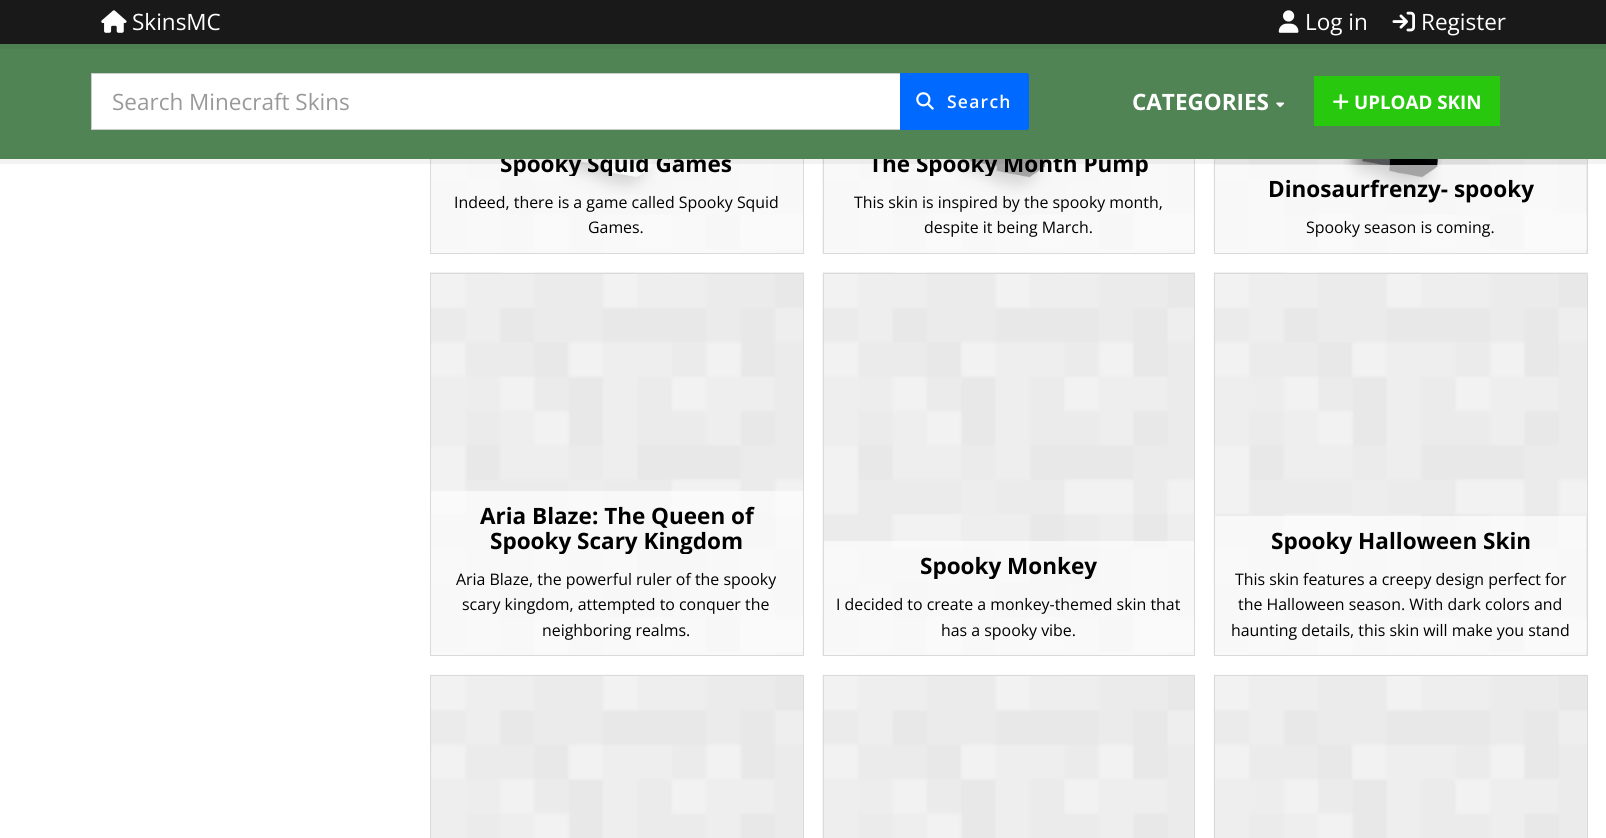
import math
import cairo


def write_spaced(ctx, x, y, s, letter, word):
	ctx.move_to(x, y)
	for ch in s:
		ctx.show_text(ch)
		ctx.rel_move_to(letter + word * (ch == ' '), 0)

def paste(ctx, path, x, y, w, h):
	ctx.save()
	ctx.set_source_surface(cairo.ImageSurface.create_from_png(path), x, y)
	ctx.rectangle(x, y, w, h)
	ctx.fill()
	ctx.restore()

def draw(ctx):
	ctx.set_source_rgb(1, 1, 1)
	ctx.paint()
	paste(ctx, 'media/7.png', 431, 159, 372, 94)
	ctx.rectangle(430.5, -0.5, 373, 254)
	ctx.set_source_rgb(0.855, 0.855, 0.855)
	ctx.set_line_width(1)
	ctx.stroke()
	paste(ctx, 'media/8.png', 558, 159, 99, 36)
	ctx.set_source_rgba(0.996, 0.996, 0.996, 0.64)
	ctx.rectangle(431, 159, 372, 94)
	ctx.fill()
	paste(ctx, 'media/9.png', 822, 159, 372, 95)
	ctx.rectangle(823.5, -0.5, 371, 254)
	ctx.set_source_rgb(0.855, 0.855, 0.855)
	ctx.stroke()
	paste(ctx, 'media/10.png', 951, 159, 99, 36)
	ctx.set_source_rgba(0.996, 0.996, 0.996, 0.64)
	ctx.rectangle(824, 159, 370, 94)
	ctx.fill()
	paste(ctx, 'media/11.png', 1213, 159, 374, 94)
	ctx.rectangle(1214.5, -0.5, 373, 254)
	ctx.set_source_rgb(0.855, 0.855, 0.855)
	ctx.stroke()
	paste(ctx, 'media/12.png', 1343, 159, 99, 36)
	ctx.set_source_rgba(0, 0, 0, 0.05)
	ctx.rectangle(0, 159, 1606, 5)
	ctx.fill()
	ctx.save()
	ctx.rectangle(444, 151, 346, 25)
	ctx.clip()
	ctx.select_font_face('Open Sans', cairo.FONT_SLANT_NORMAL, cairo.FONT_WEIGHT_BOLD)
	ctx.set_font_size(22.5)
	ctx.set_source_rgb(0, 0, 0)
	ctx.move_to(500, 172)
	ctx.show_text('Spooky Squid Games')
	ctx.restore()
	ctx.save()
	ctx.rectangle(836, 151, 345, 25)
	ctx.clip()
	ctx.select_font_face('Open Sans', cairo.FONT_SLANT_NORMAL, cairo.FONT_WEIGHT_BOLD)
	ctx.set_font_size(22.5)
	ctx.set_source_rgb(0, 0, 0)
	ctx.move_to(869, 172)
	ctx.show_text('The Spooky Month Pump')
	ctx.restore()
	ctx.set_source_rgb(0.314, 0.518, 0.329)
	ctx.rectangle(0, 49, 1606, 110)
	ctx.fill()
	ctx.set_source_rgb(0.302, 0.498, 0.318)
	ctx.rectangle(0, 44, 1606, 5)
	ctx.fill()
	ctx.set_source_rgb(0.098, 0.098, 0.098)
	ctx.rectangle(0, 0, 1606, 44)
	ctx.fill()
	paste(ctx, 'media/1.png', 101, 10, 26, 23)
	ctx.select_font_face('Open Sans')
	ctx.set_font_size(22.5)
	ctx.set_source_rgb(1, 1, 1)
	ctx.move_to(132, 30)
	ctx.show_text('SkinsMC')
	paste(ctx, 'media/2.png', 1278, 10, 21, 23)
	ctx.move_to(1305, 30)
	ctx.show_text('Log in')
	paste(ctx, 'media/3.png', 1392, 11, 23, 21)
	ctx.move_to(1421, 30)
	ctx.show_text('Register')
	ctx.rectangle(91.5, 73.5, 809, 56)
	ctx.fill_preserve()
	ctx.set_source_rgb(0.8, 0.8, 0.8)
	ctx.stroke()
	ctx.set_source_rgb(0.6, 0.6, 0.6)
	ctx.move_to(112, 110)
	ctx.show_text('Search Minecraft Skins')
	ctx.set_source_rgb(0, 0.412, 1)
	ctx.new_path()
	ctx.move_to(900.5, 73.5)
	ctx.line_to(1026.5, 73.5)
	ctx.curve_to(1027.5, 73.5, 1028.5, 74.5, 1028.5, 75.5)
	ctx.line_to(1028.5, 127.5)
	ctx.curve_to(1028.5, 128.5, 1027.5, 129.5, 1026.5, 129.5)
	ctx.line_to(900.5, 129.5)
	ctx.close_path()
	ctx.fill_preserve()
	ctx.stroke()
	paste(ctx, 'media/4.png', 916, 92, 18, 18)
	ctx.select_font_face('Open Sans SemiBold')
	ctx.set_font_size(17.5)
	ctx.set_source_rgb(1, 1, 1)
	write_spaced(ctx, 947, 108, 'Search', 1.25, 0)
	ctx.select_font_face('Open Sans', cairo.FONT_SLANT_NORMAL, cairo.FONT_WEIGHT_BOLD)
	ctx.set_font_size(22.5)
	ctx.move_to(1132, 110)
	ctx.show_text('CATEGORIES')
	paste(ctx, 'media/5.png', 1276, 102, 8, 6)
	ctx.set_source_rgb(0.157, 0.784, 0.055)
	ctx.rectangle(1314, 76, 186, 50)
	ctx.fill()
	paste(ctx, 'media/6.png', 1333, 94, 16, 16)
	ctx.set_font_size(18.75)
	ctx.set_source_rgb(1, 1, 1)
	ctx.move_to(1354, 109)
	ctx.show_text('UPLOAD SKIN')
	ctx.select_font_face('Open Sans')
	ctx.set_font_size(15.9)
	ctx.set_source_rgb(0, 0, 0)
	for x, y, s in [
		(454, 208, 'Indeed, there is a game called Spooky Squid'),
		(588, 233, 'Games.'),
		(854, 208, 'This skin is inspired by the spooky month,'),
		(924, 233, 'despite it being March.'),
	]:
		ctx.move_to(x, y)
		ctx.show_text(s)
	ctx.set_source_rgba(0.996, 0.996, 0.996, 0.64)
	ctx.rectangle(1215, 165, 371, 88)
	ctx.fill()
	ctx.select_font_face('Open Sans', cairo.FONT_SLANT_NORMAL, cairo.FONT_WEIGHT_BOLD)
	ctx.set_font_size(22.5)
	ctx.set_source_rgb(0, 0, 0)
	ctx.move_to(1268, 197)
	ctx.show_text('Dinosaurfrenzy- spooky')
	ctx.select_font_face('Open Sans')
	ctx.set_font_size(15.9)
	ctx.move_to(1306, 233)
	ctx.show_text('Spooky season is coming.')
	paste(ctx, 'media/13.png', 430, 272, 374, 383)
	ctx.rectangle(430.5, 273.5, 373, 382)
	ctx.set_source_rgb(0.855, 0.855, 0.855)
	ctx.stroke()
	ctx.set_source_rgba(0.996, 0.996, 0.996, 0.64)
	ctx.rectangle(431, 491, 372, 164)
	ctx.fill()
	ctx.select_font_face('Open Sans', cairo.FONT_SLANT_NORMAL, cairo.FONT_WEIGHT_BOLD)
	ctx.set_font_size(22.5)
	ctx.set_source_rgb(0, 0, 0)
	ctx.move_to(480, 524)
	ctx.show_text('Aria Blaze: The Queen of')
	ctx.save()
	ctx.rectangle(444, 504, 346, 50)
	ctx.clip()
	ctx.move_to(490, 549)
	ctx.show_text('Spooky Scary Kingdom')
	ctx.restore()
	ctx.select_font_face('Open Sans')
	ctx.set_font_size(15.9)
	for x, y, s in [
		(456, 585, 'Aria Blaze, the powerful ruler of the spooky'),
		(462, 610, 'scary kingdom, attempted to conquer the'),
		(542, 636, 'neighboring realms.'),
	]:
		ctx.move_to(x, y)
		ctx.show_text(s)
	paste(ctx, 'media/14.png', 822, 272, 373, 384)
	ctx.rectangle(823.5, 273.5, 371, 382)
	ctx.set_source_rgb(0.855, 0.855, 0.855)
	ctx.stroke()
	ctx.set_source_rgba(0.996, 0.996, 0.996, 0.64)
	ctx.rectangle(824, 541, 370, 114)
	ctx.fill()
	ctx.save()
	ctx.rectangle(836, 554, 345, 25)
	ctx.clip()
	ctx.select_font_face('Open Sans', cairo.FONT_SLANT_NORMAL, cairo.FONT_WEIGHT_BOLD)
	ctx.set_font_size(22.5)
	ctx.set_source_rgb(0, 0, 0)
	ctx.move_to(920, 574)
	ctx.show_text('Spooky Monkey')
	ctx.restore()
	ctx.set_source_rgb(0, 0, 0)
	ctx.move_to(836, 610)
	ctx.show_text('I decided to create a monkey-themed skin that')
	ctx.move_to(941, 636)
	ctx.show_text('has a spooky vibe.')
	paste(ctx, 'media/15.png', 1213, 272, 375, 384)
	ctx.rectangle(1214.5, 273.5, 373, 382)
	ctx.set_source_rgb(0.855, 0.855, 0.855)
	ctx.stroke()
	ctx.set_source_rgba(0.996, 0.996, 0.996, 0.64)
	ctx.rectangle(1215, 516, 371, 139)
	ctx.fill()
	ctx.save()
	ctx.rectangle(1228, 529, 346, 25)
	ctx.clip()
	ctx.select_font_face('Open Sans', cairo.FONT_SLANT_NORMAL, cairo.FONT_WEIGHT_BOLD)
	ctx.set_font_size(22.5)
	ctx.set_source_rgb(0, 0, 0)
	ctx.move_to(1271, 549)
	ctx.show_text('Spooky Halloween Skin')
	ctx.restore()
	ctx.set_source_rgb(0, 0, 0)
	for x, y, s in [
		(1235, 585, 'This skin features a creepy design perfect for'),
		(1238, 610, 'the Halloween season. With dark colors and'),
		(1231, 636, 'haunting details, this skin will make you stand'),
	]:
		ctx.move_to(x, y)
		ctx.show_text(s)
	paste(ctx, 'media/16.png', 430, 674, 373, 164)
	ctx.rectangle(430.5, 675.5, 373, 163)
	ctx.set_source_rgb(0.855, 0.855, 0.855)
	ctx.stroke()
	paste(ctx, 'media/17.png', 822, 674, 373, 164)
	ctx.rectangle(823.5, 675.5, 371, 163)
	ctx.stroke()
	paste(ctx, 'media/18.png', 1213, 674, 374, 164)
	ctx.rectangle(1214.5, 675.5, 373, 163)
	ctx.stroke()


surface = cairo.ImageSurface(cairo.FORMAT_RGB24, 1606, 838)
ctx = cairo.Context(surface)
options = cairo.FontOptions()
options.set_hint_metrics(cairo.HINT_METRICS_OFF)
options.set_hint_style(cairo.HINT_STYLE_NONE)
ctx.set_font_options(options)
ctx.set_miter_limit(4)
draw(ctx)
surface.write_to_png('image.png')
